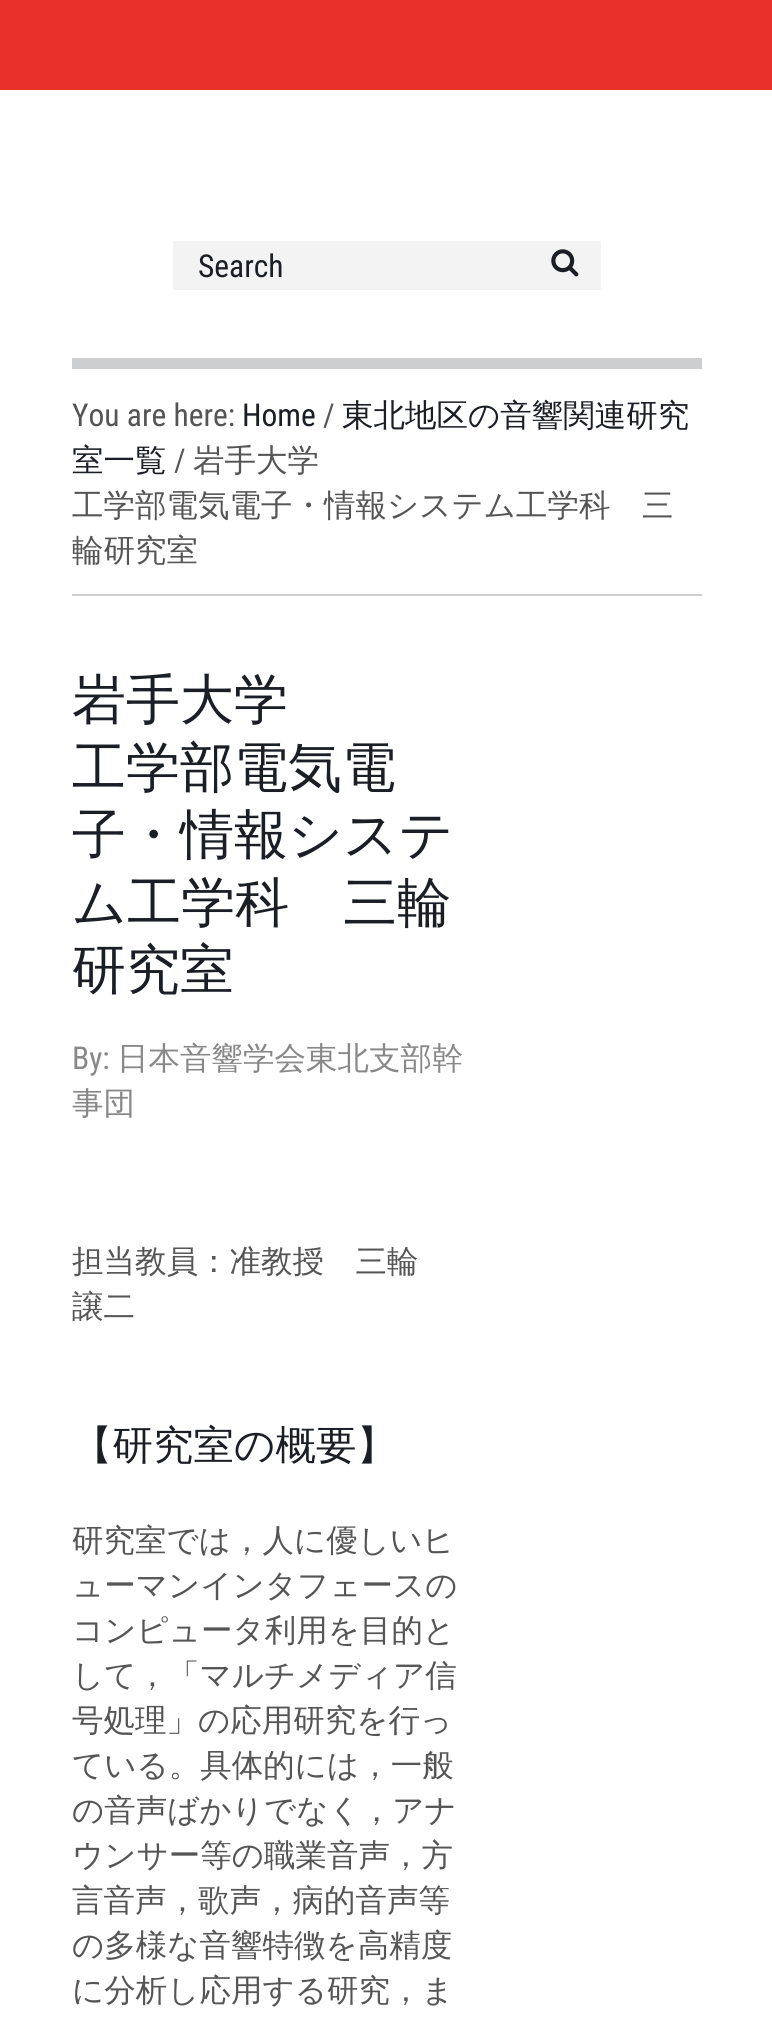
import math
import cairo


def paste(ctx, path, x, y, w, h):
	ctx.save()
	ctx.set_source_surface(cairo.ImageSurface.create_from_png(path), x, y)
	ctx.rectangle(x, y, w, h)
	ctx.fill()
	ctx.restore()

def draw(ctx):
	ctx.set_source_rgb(1, 1, 1)
	ctx.paint()
	ctx.set_source_rgb(0.914, 0.188, 0.169)
	ctx.rectangle(0, 0, 772, 90)
	ctx.fill()
	ctx.set_source_rgb(0.953, 0.953, 0.953)
	ctx.rectangle(173, 241, 428, 49)
	ctx.fill()
	ctx.select_font_face('Roboto Condensed')
	ctx.set_font_size(31.5)
	ctx.set_source_rgb(0.106, 0.122, 0.145)
	ctx.move_to(198, 277)
	ctx.show_text('Search')
	paste(ctx, 'media/1.png', 551, 249, 28, 28)
	ctx.set_source_rgb(0.804, 0.808, 0.812)
	ctx.rectangle(72, 358, 630, 11)
	ctx.fill()
	ctx.rectangle(72, 594, 630, 2)
	ctx.fill()
	ctx.set_source_rgb(0.333, 0.333, 0.333)
	ctx.move_to(72, 426)
	ctx.show_text('You are here:')
	ctx.set_source_rgb(0.106, 0.122, 0.145)
	ctx.move_to(242, 426)
	ctx.show_text('Home')
	ctx.set_source_rgb(0.333, 0.333, 0.333)
	ctx.move_to(323, 426)
	ctx.show_text('/')
	ctx.select_font_face('WenQuanYi Zen Hei Medium')
	ctx.set_source_rgb(0.106, 0.122, 0.145)
	ctx.move_to(342, 426)
	ctx.show_text('東北地区の音響関連研究')
	ctx.move_to(72, 471)
	ctx.show_text('室一覧')
	ctx.select_font_face('Roboto Condensed')
	ctx.set_source_rgb(0.333, 0.333, 0.333)
	ctx.move_to(174, 471)
	ctx.show_text('/')
	ctx.select_font_face('WenQuanYi Zen Hei Medium')
	for x, y, s in [
		(193, 471, '岩手大学'),
		(72, 516, '工学部電気電子・情報システム工学科　三'),
		(72, 561, '輪研究室'),
	]:
		ctx.move_to(x, y)
		ctx.show_text(s)
	ctx.set_font_size(54)
	ctx.set_source_rgb(0.106, 0.122, 0.145)
	for x, y, s in [
		(72, 718, '岩手大学'),
		(72, 786, '工学部電気電'),
		(72, 853, '子・情報システ'),
		(72, 921, 'ム工学科　三輪'),
		(72, 988, '研究室'),
	]:
		ctx.move_to(x, y)
		ctx.show_text(s)
	ctx.select_font_face('Roboto Condensed')
	ctx.set_font_size(31.5)
	ctx.set_source_rgb(0.533, 0.533, 0.533)
	ctx.move_to(72, 1069)
	ctx.show_text('By:')
	ctx.select_font_face('WenQuanYi Zen Hei Medium')
	ctx.move_to(117, 1069)
	ctx.show_text('日本音響学会東北支部幹')
	ctx.move_to(72, 1114)
	ctx.show_text('事団')
	ctx.set_source_rgb(0.333, 0.333, 0.333)
	ctx.move_to(72, 1272)
	ctx.show_text('担当教員：准教授　三輪')
	ctx.move_to(72, 1317)
	ctx.show_text('譲二')
	ctx.set_font_size(40.5)
	ctx.set_source_rgb(0.106, 0.122, 0.145)
	ctx.move_to(72, 1459)
	ctx.show_text('【研究室の概要】')
	ctx.set_font_size(31.5)
	ctx.set_source_rgb(0.333, 0.333, 0.333)
	for x, y, s in [
		(72, 1551, '研究室では，人に優しいヒ'),
		(72, 1596, 'ューマンインタフェースの'),
		(72, 1641, 'コンピュータ利用を目的と'),
		(72, 1686, 'して，「マルチメディア信'),
		(72, 1731, '号処理」の応用研究を行っ'),
		(72, 1776, 'ている。具体的には，一般'),
		(72, 1821, 'の音声ばかりでなく，アナ'),
		(72, 1866, 'ウンサー等の職業音声，方'),
		(72, 1911, '言音声，歌声，病的音声等'),
		(72, 1956, 'の多様な音響特徴を高精度'),
		(72, 2001, 'に分析し応用する研究，ま'),
	]:
		ctx.move_to(x, y)
		ctx.show_text(s)


surface = cairo.ImageSurface(cairo.FORMAT_RGB24, 772, 2018)
ctx = cairo.Context(surface)
options = cairo.FontOptions()
options.set_hint_metrics(cairo.HINT_METRICS_OFF)
options.set_hint_style(cairo.HINT_STYLE_NONE)
ctx.set_font_options(options)
ctx.set_miter_limit(4)
draw(ctx)
surface.write_to_png('image.png')
